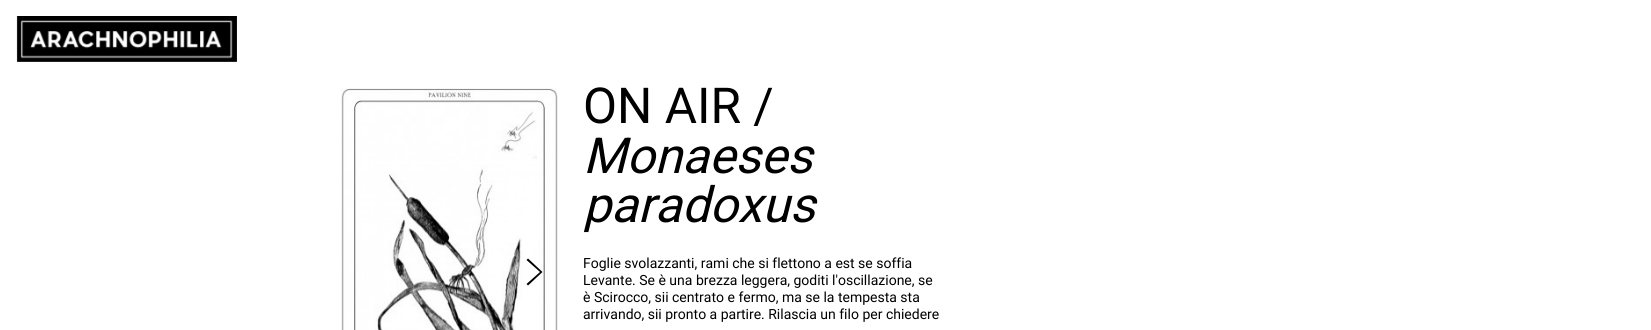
import math
import cairo


def paste(ctx, path, x, y, w, h):
	ctx.save()
	ctx.set_source_surface(cairo.ImageSurface.create_from_png(path), x, y)
	ctx.rectangle(x, y, w, h)
	ctx.fill()
	ctx.restore()

def draw(ctx):
	ctx.set_source_rgb(1, 1, 1)
	ctx.paint()
	paste(ctx, 'media/1.png', 16, 16, 221, 46)
	paste(ctx, 'media/2.png', 340, 88, 218, 242)
	ctx.set_source_rgb(0, 0, 0)
	ctx.new_path()
	ctx.move_to(542.5, 272)
	ctx.line_to(528, 258.5)
	ctx.line_to(526.5, 260)
	ctx.line_to(540, 272)
	ctx.line_to(526.5, 284)
	ctx.line_to(528, 285.5)
	ctx.close_path()
	ctx.fill()
	ctx.select_font_face('Roboto')
	ctx.set_font_size(49.5)
	ctx.move_to(583, 123)
	ctx.show_text('ON AIR /')
	ctx.select_font_face('Roboto', cairo.FONT_SLANT_ITALIC)
	ctx.move_to(583, 173)
	ctx.show_text('Monaeses')
	ctx.move_to(583, 222)
	ctx.show_text('paradoxus')
	ctx.select_font_face('Roboto')
	ctx.set_font_size(14)
	for x, y, s in [
		(583, 268, 'Foglie svolazzanti, rami che si flettono a est se soffia'),
		(583, 285, 'Levante. Se è una brezza leggera, goditi l\'oscillazione, se'),
		(583, 302, 'è Scirocco, sii centrato e fermo, ma se la tempesta sta'),
		(583, 319, 'arrivando, sii pronto a partire. Rilascia un filo per chiedere'),
	]:
		ctx.move_to(x, y)
		ctx.show_text(s)


surface = cairo.ImageSurface(cairo.FORMAT_RGB24, 1651, 330)
ctx = cairo.Context(surface)
options = cairo.FontOptions()
options.set_hint_metrics(cairo.HINT_METRICS_OFF)
options.set_hint_style(cairo.HINT_STYLE_NONE)
ctx.set_font_options(options)
ctx.set_miter_limit(4)
draw(ctx)
surface.write_to_png('image.png')
